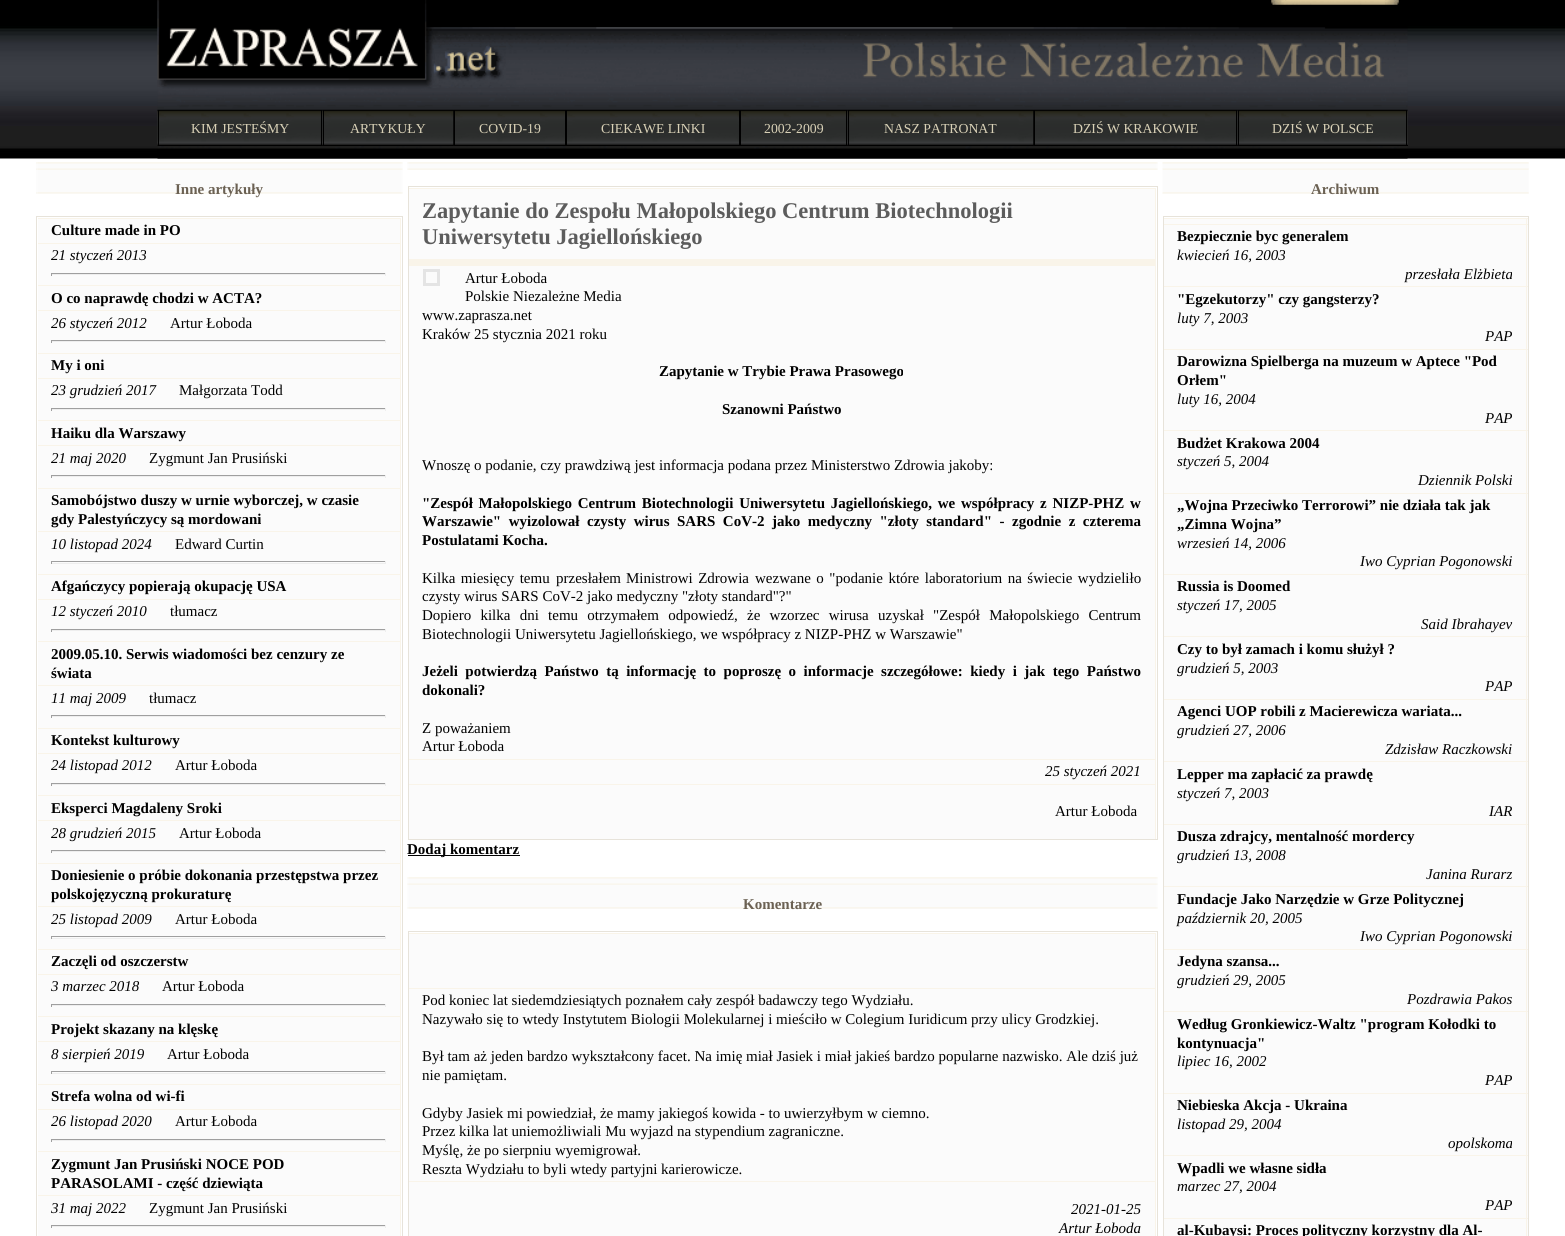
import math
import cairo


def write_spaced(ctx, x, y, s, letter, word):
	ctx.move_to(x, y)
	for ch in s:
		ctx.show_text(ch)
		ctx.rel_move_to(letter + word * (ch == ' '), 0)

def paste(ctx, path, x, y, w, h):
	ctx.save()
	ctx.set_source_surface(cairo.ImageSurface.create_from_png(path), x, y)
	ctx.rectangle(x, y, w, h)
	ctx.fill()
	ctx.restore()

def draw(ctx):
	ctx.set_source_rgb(1, 1, 1)
	ctx.paint()
	paste(ctx, 'media/1.png', 0, 0, 1565, 159)
	paste(ctx, 'media/2.png', 157, 0, 1251, 159)
	paste(ctx, 'media/3.png', 157, 0, 275, 87)
	paste(ctx, 'media/4.png', 1271, 0, 128, 5)
	paste(ctx, 'media/5.png', 432, 44, 74, 44)
	paste(ctx, 'media/6.png', 862, 42, 534, 36)
	paste(ctx, 'media/7.png', 157, 109, 166, 37)
	ctx.set_source_rgb(0, 0, 0)
	ctx.rectangle(321, 110, 1, 36)
	ctx.rectangle(158, 145, 165, 1)
	ctx.rectangle(158, 110, 1, 36)
	ctx.fill()
	ctx.select_font_face('Liberation Serif')
	ctx.set_font_size(13.75)
	ctx.set_source_rgb(0.847, 0.816, 0.714)
	ctx.move_to(191, 133)
	ctx.show_text('KIM JESTEŚMY')
	paste(ctx, 'media/8.png', 322, 109, 132, 37)
	ctx.set_source_rgb(0, 0, 0)
	ctx.rectangle(453, 110, 1, 36)
	ctx.rectangle(323, 145, 131, 1)
	ctx.rectangle(323, 110, 1, 36)
	ctx.fill()
	ctx.set_source_rgb(0.847, 0.816, 0.714)
	ctx.move_to(350, 133)
	ctx.show_text('ARTYKUŁY')
	paste(ctx, 'media/9.png', 453, 109, 114, 37)
	ctx.set_source_rgb(0, 0, 0)
	ctx.rectangle(565, 110, 1, 36)
	ctx.rectangle(454, 145, 112, 1)
	ctx.rectangle(454, 110, 1, 36)
	ctx.fill()
	ctx.set_source_rgb(0.847, 0.816, 0.714)
	ctx.move_to(479, 133)
	ctx.show_text('COVID-19')
	paste(ctx, 'media/10.png', 566, 109, 174, 36)
	ctx.set_source_rgb(0, 0, 0)
	ctx.rectangle(739, 110, 1, 36)
	ctx.rectangle(566, 145, 174, 1)
	ctx.rectangle(566, 110, 1, 36)
	ctx.fill()
	ctx.set_source_rgb(0.847, 0.816, 0.714)
	ctx.move_to(601, 133)
	ctx.show_text('CIEKAWE LINKI')
	paste(ctx, 'media/11.png', 740, 109, 108, 36)
	ctx.set_source_rgb(0, 0, 0)
	ctx.rectangle(846, 110, 1, 36)
	ctx.rectangle(740, 145, 108, 1)
	ctx.rectangle(740, 110, 1, 36)
	ctx.fill()
	ctx.set_source_rgb(0.847, 0.816, 0.714)
	ctx.move_to(764, 133)
	ctx.show_text('2002-2009')
	paste(ctx, 'media/12.png', 847, 109, 187, 37)
	ctx.set_source_rgb(0, 0, 0)
	ctx.rectangle(1033, 110, 1, 36)
	ctx.rectangle(848, 145, 186, 1)
	ctx.rectangle(848, 110, 1, 36)
	ctx.fill()
	ctx.set_source_rgb(0.847, 0.816, 0.714)
	ctx.move_to(884, 133)
	ctx.show_text('NASZ PATRONAT')
	paste(ctx, 'media/13.png', 1033, 109, 205, 37)
	ctx.set_source_rgb(0, 0, 0)
	ctx.rectangle(1236, 110, 1, 36)
	ctx.rectangle(1034, 145, 204, 1)
	ctx.rectangle(1034, 110, 1, 36)
	ctx.fill()
	ctx.set_source_rgb(0.847, 0.816, 0.714)
	ctx.move_to(1073, 133)
	ctx.show_text('DZIŚ W KRAKOWIE')
	paste(ctx, 'media/14.png', 1237, 109, 171, 37)
	ctx.set_source_rgb(0, 0, 0)
	ctx.rectangle(1406, 110, 1, 36)
	ctx.rectangle(1238, 145, 170, 1)
	ctx.rectangle(1238, 110, 1, 36)
	ctx.fill()
	ctx.set_source_rgb(0.847, 0.816, 0.714)
	ctx.move_to(1272, 133)
	ctx.show_text('DZIŚ W POLSCE')
	paste(ctx, 'media/15.png', 36, 162, 2, 32)
	paste(ctx, 'media/16.png', 37, 162, 365, 32)
	ctx.select_font_face('Liberation Serif', cairo.FONT_SLANT_NORMAL, cairo.FONT_WEIGHT_BOLD)
	ctx.set_font_size(15)
	ctx.set_source_rgb(0.42, 0.38, 0.325)
	ctx.move_to(175, 194)
	ctx.show_text('Inne artykuły')
	paste(ctx, 'media/17.png', 401, 162, 2, 32)
	ctx.rectangle(36.5, 216.5, 366, 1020)
	ctx.set_source_rgb(0.906, 0.89, 0.855)
	ctx.set_line_width(1)
	ctx.stroke()
	ctx.set_source_rgb(0.984, 0.984, 0.984)
	ctx.rectangle(38, 219, 362, 24)
	ctx.fill()
	ctx.set_source_rgb(0.973, 0.957, 0.914)
	ctx.rectangle(38, 218, 363, 1)
	ctx.rectangle(400, 218, 1, 25)
	ctx.fill()
	ctx.set_source_rgb(0, 0, 0)
	ctx.move_to(51, 235)
	ctx.show_text('Culture made in PO')
	ctx.set_source_rgb(0.984, 0.984, 0.984)
	ctx.rectangle(38, 244, 362, 41)
	ctx.fill()
	ctx.set_source_rgb(0.973, 0.957, 0.914)
	ctx.rectangle(38, 243, 363, 1)
	ctx.rectangle(400, 243, 1, 42)
	ctx.fill()
	ctx.select_font_face('Liberation Serif', cairo.FONT_SLANT_ITALIC)
	ctx.set_source_rgb(0, 0, 0)
	ctx.move_to(51, 260)
	ctx.show_text('21 styczeń 2013')
	ctx.set_source_rgb(0.624, 0.624, 0.624)
	ctx.rectangle(51, 273, 335, 1)
	ctx.fill()
	ctx.set_source_rgb(0.933, 0.933, 0.933)
	ctx.rectangle(385, 273, 1, 3)
	ctx.rectangle(51, 274, 335, 1)
	ctx.fill()
	ctx.set_source_rgb(0.624, 0.624, 0.624)
	ctx.rectangle(51, 273, 1, 3)
	ctx.fill()
	ctx.set_source_rgb(0.984, 0.984, 0.984)
	ctx.rectangle(38, 286, 362, 24)
	ctx.fill()
	ctx.set_source_rgb(0.973, 0.957, 0.914)
	ctx.rectangle(38, 285, 363, 1)
	ctx.rectangle(400, 285, 1, 25)
	ctx.fill()
	ctx.select_font_face('Liberation Serif', cairo.FONT_SLANT_NORMAL, cairo.FONT_WEIGHT_BOLD)
	ctx.set_source_rgb(0, 0, 0)
	ctx.move_to(51, 303)
	ctx.show_text('O co naprawdę chodzi w ACTA?')
	ctx.set_source_rgb(0.984, 0.984, 0.984)
	ctx.rectangle(38, 311, 362, 42)
	ctx.fill()
	ctx.set_source_rgb(0.973, 0.957, 0.914)
	ctx.rectangle(38, 310, 363, 1)
	ctx.rectangle(400, 310, 1, 43)
	ctx.fill()
	ctx.select_font_face('Liberation Serif', cairo.FONT_SLANT_ITALIC)
	ctx.set_source_rgb(0, 0, 0)
	ctx.move_to(51, 328)
	ctx.show_text('26 styczeń 2012')
	ctx.select_font_face('Liberation Serif')
	ctx.move_to(170, 328)
	ctx.show_text('Artur Łoboda')
	ctx.set_source_rgb(0.624, 0.624, 0.624)
	ctx.rectangle(51, 340, 335, 1)
	ctx.fill()
	ctx.set_source_rgb(0.933, 0.933, 0.933)
	ctx.rectangle(385, 340, 1, 3)
	ctx.rectangle(51, 341, 335, 1)
	ctx.fill()
	ctx.set_source_rgb(0.624, 0.624, 0.624)
	ctx.rectangle(51, 340, 1, 3)
	ctx.fill()
	ctx.set_source_rgb(0.984, 0.984, 0.984)
	ctx.rectangle(38, 354, 362, 24)
	ctx.fill()
	ctx.set_source_rgb(0.973, 0.957, 0.914)
	ctx.rectangle(38, 353, 363, 1)
	ctx.rectangle(400, 353, 1, 25)
	ctx.fill()
	ctx.select_font_face('Liberation Serif', cairo.FONT_SLANT_NORMAL, cairo.FONT_WEIGHT_BOLD)
	ctx.set_source_rgb(0, 0, 0)
	ctx.move_to(51, 370)
	ctx.show_text('My i oni')
	ctx.set_source_rgb(0.984, 0.984, 0.984)
	ctx.rectangle(38, 379, 362, 41)
	ctx.fill()
	ctx.set_source_rgb(0.973, 0.957, 0.914)
	ctx.rectangle(38, 378, 363, 1)
	ctx.rectangle(400, 378, 1, 42)
	ctx.fill()
	ctx.select_font_face('Liberation Serif', cairo.FONT_SLANT_ITALIC)
	ctx.set_source_rgb(0, 0, 0)
	ctx.move_to(51, 395)
	ctx.show_text('23 grudzień 2017')
	ctx.select_font_face('Liberation Serif')
	ctx.move_to(179, 395)
	ctx.show_text('Małgorzata Todd')
	ctx.set_source_rgb(0.624, 0.624, 0.624)
	ctx.rectangle(51, 408, 335, 1)
	ctx.fill()
	ctx.set_source_rgb(0.933, 0.933, 0.933)
	ctx.rectangle(385, 408, 1, 3)
	ctx.rectangle(51, 409, 335, 1)
	ctx.fill()
	ctx.set_source_rgb(0.624, 0.624, 0.624)
	ctx.rectangle(51, 408, 1, 3)
	ctx.fill()
	ctx.set_source_rgb(0.984, 0.984, 0.984)
	ctx.rectangle(38, 421, 362, 24)
	ctx.fill()
	ctx.set_source_rgb(0.973, 0.957, 0.914)
	ctx.rectangle(38, 420, 363, 1)
	ctx.rectangle(400, 420, 1, 25)
	ctx.fill()
	ctx.select_font_face('Liberation Serif', cairo.FONT_SLANT_NORMAL, cairo.FONT_WEIGHT_BOLD)
	ctx.set_source_rgb(0, 0, 0)
	ctx.move_to(51, 438)
	ctx.show_text('Haiku dla Warszawy')
	ctx.set_source_rgb(0.984, 0.984, 0.984)
	ctx.rectangle(38, 446, 362, 42)
	ctx.fill()
	ctx.set_source_rgb(0.973, 0.957, 0.914)
	ctx.rectangle(38, 445, 363, 1)
	ctx.rectangle(400, 445, 1, 43)
	ctx.fill()
	ctx.select_font_face('Liberation Serif', cairo.FONT_SLANT_ITALIC)
	ctx.set_source_rgb(0, 0, 0)
	ctx.move_to(51, 463)
	ctx.show_text('21 maj 2020')
	ctx.select_font_face('Liberation Serif')
	ctx.move_to(149, 463)
	ctx.show_text('Zygmunt Jan Prusiński')
	ctx.set_source_rgb(0.624, 0.624, 0.624)
	ctx.rectangle(51, 475, 335, 1)
	ctx.fill()
	ctx.set_source_rgb(0.933, 0.933, 0.933)
	ctx.rectangle(385, 475, 1, 3)
	ctx.rectangle(51, 476, 335, 1)
	ctx.fill()
	ctx.set_source_rgb(0.624, 0.624, 0.624)
	ctx.rectangle(51, 475, 1, 3)
	ctx.fill()
	ctx.set_source_rgb(0.984, 0.984, 0.984)
	ctx.rectangle(38, 489, 362, 42)
	ctx.fill()
	ctx.set_source_rgb(0.973, 0.957, 0.914)
	ctx.rectangle(38, 488, 363, 1)
	ctx.rectangle(400, 488, 1, 43)
	ctx.fill()
	ctx.select_font_face('Liberation Serif', cairo.FONT_SLANT_NORMAL, cairo.FONT_WEIGHT_BOLD)
	ctx.set_source_rgb(0, 0, 0)
	ctx.move_to(51, 505)
	ctx.show_text('Samobójstwo duszy w urnie wyborczej, w czasie')
	ctx.move_to(51, 524)
	ctx.show_text('gdy Palestyńczycy są mordowani')
	ctx.set_source_rgb(0.984, 0.984, 0.984)
	ctx.rectangle(38, 532, 362, 42)
	ctx.fill()
	ctx.set_source_rgb(0.973, 0.957, 0.914)
	ctx.rectangle(38, 531, 363, 1)
	ctx.rectangle(400, 531, 1, 43)
	ctx.fill()
	ctx.select_font_face('Liberation Serif', cairo.FONT_SLANT_ITALIC)
	ctx.set_source_rgb(0, 0, 0)
	ctx.move_to(51, 549)
	ctx.show_text('10 listopad 2024')
	ctx.select_font_face('Liberation Serif')
	ctx.move_to(175, 549)
	ctx.show_text('Edward Curtin')
	ctx.set_source_rgb(0.624, 0.624, 0.624)
	ctx.rectangle(51, 561, 335, 1)
	ctx.fill()
	ctx.set_source_rgb(0.933, 0.933, 0.933)
	ctx.rectangle(385, 561, 1, 3)
	ctx.rectangle(51, 563, 335, 1)
	ctx.fill()
	ctx.set_source_rgb(0.624, 0.624, 0.624)
	ctx.rectangle(51, 561, 1, 3)
	ctx.fill()
	ctx.set_source_rgb(0.984, 0.984, 0.984)
	ctx.rectangle(38, 575, 362, 24)
	ctx.fill()
	ctx.set_source_rgb(0.973, 0.957, 0.914)
	ctx.rectangle(38, 574, 363, 1)
	ctx.rectangle(400, 574, 1, 25)
	ctx.fill()
	ctx.select_font_face('Liberation Serif', cairo.FONT_SLANT_NORMAL, cairo.FONT_WEIGHT_BOLD)
	ctx.set_source_rgb(0, 0, 0)
	ctx.move_to(51, 591)
	ctx.show_text('Afgańczycy popierają okupację USA')
	ctx.set_source_rgb(0.984, 0.984, 0.984)
	ctx.rectangle(38, 600, 362, 41)
	ctx.fill()
	ctx.set_source_rgb(0.973, 0.957, 0.914)
	ctx.rectangle(38, 599, 363, 1)
	ctx.rectangle(400, 599, 1, 42)
	ctx.fill()
	ctx.select_font_face('Liberation Serif', cairo.FONT_SLANT_ITALIC)
	ctx.set_source_rgb(0, 0, 0)
	ctx.move_to(51, 616)
	ctx.show_text('12 styczeń 2010')
	ctx.select_font_face('Liberation Serif')
	ctx.move_to(170, 616)
	ctx.show_text('tłumacz')
	ctx.set_source_rgb(0.624, 0.624, 0.624)
	ctx.rectangle(51, 629, 335, 1)
	ctx.fill()
	ctx.set_source_rgb(0.933, 0.933, 0.933)
	ctx.rectangle(385, 629, 1, 3)
	ctx.rectangle(51, 630, 335, 1)
	ctx.fill()
	ctx.set_source_rgb(0.624, 0.624, 0.624)
	ctx.rectangle(51, 629, 1, 3)
	ctx.fill()
	ctx.set_source_rgb(0.984, 0.984, 0.984)
	ctx.rectangle(38, 642, 362, 43)
	ctx.fill()
	ctx.set_source_rgb(0.973, 0.957, 0.914)
	ctx.rectangle(38, 641, 363, 1)
	ctx.rectangle(400, 641, 1, 44)
	ctx.fill()
	ctx.select_font_face('Liberation Serif', cairo.FONT_SLANT_NORMAL, cairo.FONT_WEIGHT_BOLD)
	ctx.set_source_rgb(0, 0, 0)
	ctx.move_to(51, 659)
	ctx.show_text('2009.05.10. Serwis wiadomości bez cenzury ze')
	ctx.move_to(51, 678)
	ctx.show_text('świata')
	ctx.set_source_rgb(0.984, 0.984, 0.984)
	ctx.rectangle(38, 686, 362, 42)
	ctx.fill()
	ctx.set_source_rgb(0.973, 0.957, 0.914)
	ctx.rectangle(38, 685, 363, 1)
	ctx.rectangle(400, 685, 1, 43)
	ctx.fill()
	ctx.select_font_face('Liberation Serif', cairo.FONT_SLANT_ITALIC)
	ctx.set_source_rgb(0, 0, 0)
	ctx.move_to(51, 703)
	ctx.show_text('11 maj 2009')
	ctx.select_font_face('Liberation Serif')
	ctx.move_to(149, 703)
	ctx.show_text('tłumacz')
	ctx.set_source_rgb(0.624, 0.624, 0.624)
	ctx.rectangle(51, 715, 335, 1)
	ctx.fill()
	ctx.set_source_rgb(0.933, 0.933, 0.933)
	ctx.rectangle(385, 715, 1, 3)
	ctx.rectangle(51, 716, 335, 1)
	ctx.fill()
	ctx.set_source_rgb(0.624, 0.624, 0.624)
	ctx.rectangle(51, 715, 1, 3)
	ctx.fill()
	ctx.set_source_rgb(0.984, 0.984, 0.984)
	ctx.rectangle(38, 729, 362, 24)
	ctx.fill()
	ctx.set_source_rgb(0.973, 0.957, 0.914)
	ctx.rectangle(38, 728, 363, 1)
	ctx.rectangle(400, 728, 1, 25)
	ctx.fill()
	ctx.select_font_face('Liberation Serif', cairo.FONT_SLANT_NORMAL, cairo.FONT_WEIGHT_BOLD)
	ctx.set_source_rgb(0, 0, 0)
	ctx.move_to(51, 745)
	ctx.show_text('Kontekst kulturowy')
	ctx.set_source_rgb(0.984, 0.984, 0.984)
	ctx.rectangle(38, 754, 362, 41)
	ctx.fill()
	ctx.set_source_rgb(0.973, 0.957, 0.914)
	ctx.rectangle(38, 753, 363, 1)
	ctx.rectangle(400, 753, 1, 42)
	ctx.fill()
	ctx.select_font_face('Liberation Serif', cairo.FONT_SLANT_ITALIC)
	ctx.set_source_rgb(0, 0, 0)
	ctx.move_to(51, 770)
	ctx.show_text('24 listopad 2012')
	ctx.select_font_face('Liberation Serif')
	ctx.move_to(175, 770)
	ctx.show_text('Artur Łoboda')
	ctx.set_source_rgb(0.624, 0.624, 0.624)
	ctx.rectangle(51, 783, 335, 1)
	ctx.fill()
	ctx.set_source_rgb(0.933, 0.933, 0.933)
	ctx.rectangle(385, 783, 1, 3)
	ctx.rectangle(51, 784, 335, 1)
	ctx.fill()
	ctx.set_source_rgb(0.624, 0.624, 0.624)
	ctx.rectangle(51, 783, 1, 3)
	ctx.fill()
	ctx.set_source_rgb(0.984, 0.984, 0.984)
	ctx.rectangle(38, 796, 362, 24)
	ctx.fill()
	ctx.set_source_rgb(0.973, 0.957, 0.914)
	ctx.rectangle(38, 795, 363, 1)
	ctx.rectangle(400, 795, 1, 25)
	ctx.fill()
	ctx.select_font_face('Liberation Serif', cairo.FONT_SLANT_NORMAL, cairo.FONT_WEIGHT_BOLD)
	ctx.set_source_rgb(0, 0, 0)
	ctx.move_to(51, 813)
	ctx.show_text('Eksperci Magdaleny Sroki')
	ctx.set_source_rgb(0.984, 0.984, 0.984)
	ctx.rectangle(38, 821, 362, 42)
	ctx.fill()
	ctx.set_source_rgb(0.973, 0.957, 0.914)
	ctx.rectangle(38, 820, 363, 1)
	ctx.rectangle(400, 820, 1, 43)
	ctx.fill()
	ctx.select_font_face('Liberation Serif', cairo.FONT_SLANT_ITALIC)
	ctx.set_source_rgb(0, 0, 0)
	ctx.move_to(51, 838)
	ctx.show_text('28 grudzień 2015')
	ctx.select_font_face('Liberation Serif')
	ctx.move_to(179, 838)
	ctx.show_text('Artur Łoboda')
	ctx.set_source_rgb(0.624, 0.624, 0.624)
	ctx.rectangle(51, 850, 335, 1)
	ctx.fill()
	ctx.set_source_rgb(0.933, 0.933, 0.933)
	ctx.rectangle(385, 850, 1, 3)
	ctx.rectangle(51, 851, 335, 1)
	ctx.fill()
	ctx.set_source_rgb(0.624, 0.624, 0.624)
	ctx.rectangle(51, 850, 1, 3)
	ctx.fill()
	ctx.set_source_rgb(0.984, 0.984, 0.984)
	ctx.rectangle(38, 864, 362, 42)
	ctx.fill()
	ctx.set_source_rgb(0.973, 0.957, 0.914)
	ctx.rectangle(38, 863, 363, 1)
	ctx.rectangle(400, 863, 1, 43)
	ctx.fill()
	ctx.select_font_face('Liberation Serif', cairo.FONT_SLANT_NORMAL, cairo.FONT_WEIGHT_BOLD)
	ctx.set_source_rgb(0, 0, 0)
	ctx.move_to(51, 880)
	ctx.show_text('Doniesienie o próbie dokonania przestępstwa przez')
	ctx.move_to(51, 899)
	ctx.show_text('polskojęzyczną prokuraturę')
	ctx.set_source_rgb(0.984, 0.984, 0.984)
	ctx.rectangle(38, 907, 362, 42)
	ctx.fill()
	ctx.set_source_rgb(0.973, 0.957, 0.914)
	ctx.rectangle(38, 906, 363, 1)
	ctx.rectangle(400, 906, 1, 43)
	ctx.fill()
	ctx.select_font_face('Liberation Serif', cairo.FONT_SLANT_ITALIC)
	ctx.set_source_rgb(0, 0, 0)
	ctx.move_to(51, 924)
	ctx.show_text('25 listopad 2009')
	ctx.select_font_face('Liberation Serif')
	ctx.move_to(175, 924)
	ctx.show_text('Artur Łoboda')
	ctx.set_source_rgb(0.624, 0.624, 0.624)
	ctx.rectangle(51, 936, 335, 1)
	ctx.fill()
	ctx.set_source_rgb(0.933, 0.933, 0.933)
	ctx.rectangle(385, 936, 1, 3)
	ctx.rectangle(51, 938, 335, 1)
	ctx.fill()
	ctx.set_source_rgb(0.624, 0.624, 0.624)
	ctx.rectangle(51, 936, 1, 3)
	ctx.fill()
	ctx.set_source_rgb(0.984, 0.984, 0.984)
	ctx.rectangle(38, 950, 362, 24)
	ctx.fill()
	ctx.set_source_rgb(0.973, 0.957, 0.914)
	ctx.rectangle(38, 949, 363, 1)
	ctx.rectangle(400, 949, 1, 25)
	ctx.fill()
	ctx.select_font_face('Liberation Serif', cairo.FONT_SLANT_NORMAL, cairo.FONT_WEIGHT_BOLD)
	ctx.set_source_rgb(0, 0, 0)
	ctx.move_to(51, 966)
	ctx.show_text('Zaczęli od oszczerstw')
	ctx.set_source_rgb(0.984, 0.984, 0.984)
	ctx.rectangle(38, 975, 362, 41)
	ctx.fill()
	ctx.set_source_rgb(0.973, 0.957, 0.914)
	ctx.rectangle(38, 974, 363, 1)
	ctx.rectangle(400, 974, 1, 42)
	ctx.fill()
	ctx.select_font_face('Liberation Serif', cairo.FONT_SLANT_ITALIC)
	ctx.set_source_rgb(0, 0, 0)
	ctx.move_to(51, 991)
	ctx.show_text('3 marzec 2018')
	ctx.select_font_face('Liberation Serif')
	ctx.move_to(162, 991)
	ctx.show_text('Artur Łoboda')
	ctx.set_source_rgb(0.624, 0.624, 0.624)
	ctx.rectangle(51, 1004, 335, 1)
	ctx.fill()
	ctx.set_source_rgb(0.933, 0.933, 0.933)
	ctx.rectangle(385, 1004, 1, 3)
	ctx.rectangle(51, 1005, 335, 1)
	ctx.fill()
	ctx.set_source_rgb(0.624, 0.624, 0.624)
	ctx.rectangle(51, 1004, 1, 3)
	ctx.fill()
	ctx.set_source_rgb(0.984, 0.984, 0.984)
	ctx.rectangle(38, 1017, 362, 24)
	ctx.fill()
	ctx.set_source_rgb(0.973, 0.957, 0.914)
	ctx.rectangle(38, 1016, 363, 1)
	ctx.rectangle(400, 1016, 1, 25)
	ctx.fill()
	ctx.select_font_face('Liberation Serif', cairo.FONT_SLANT_NORMAL, cairo.FONT_WEIGHT_BOLD)
	ctx.set_source_rgb(0, 0, 0)
	ctx.move_to(51, 1034)
	ctx.show_text('Projekt skazany na klęskę')
	ctx.set_source_rgb(0.984, 0.984, 0.984)
	ctx.rectangle(38, 1042, 362, 42)
	ctx.fill()
	ctx.set_source_rgb(0.973, 0.957, 0.914)
	ctx.rectangle(38, 1041, 363, 1)
	ctx.rectangle(400, 1041, 1, 43)
	ctx.fill()
	ctx.select_font_face('Liberation Serif', cairo.FONT_SLANT_ITALIC)
	ctx.set_source_rgb(0, 0, 0)
	ctx.move_to(51, 1059)
	ctx.show_text('8 sierpień 2019')
	ctx.select_font_face('Liberation Serif')
	ctx.move_to(167, 1059)
	ctx.show_text('Artur Łoboda')
	ctx.set_source_rgb(0.624, 0.624, 0.624)
	ctx.rectangle(51, 1071, 335, 1)
	ctx.fill()
	ctx.set_source_rgb(0.933, 0.933, 0.933)
	ctx.rectangle(385, 1071, 1, 3)
	ctx.rectangle(51, 1073, 335, 1)
	ctx.fill()
	ctx.set_source_rgb(0.624, 0.624, 0.624)
	ctx.rectangle(51, 1071, 1, 3)
	ctx.fill()
	ctx.set_source_rgb(0.984, 0.984, 0.984)
	ctx.rectangle(38, 1085, 362, 24)
	ctx.fill()
	ctx.set_source_rgb(0.973, 0.957, 0.914)
	ctx.rectangle(38, 1084, 363, 1)
	ctx.rectangle(400, 1084, 1, 25)
	ctx.fill()
	ctx.select_font_face('Liberation Serif', cairo.FONT_SLANT_NORMAL, cairo.FONT_WEIGHT_BOLD)
	ctx.set_source_rgb(0, 0, 0)
	ctx.move_to(51, 1101)
	ctx.show_text('Strefa wolna od wi-fi')
	ctx.set_source_rgb(0.984, 0.984, 0.984)
	ctx.rectangle(38, 1110, 362, 41)
	ctx.fill()
	ctx.set_source_rgb(0.973, 0.957, 0.914)
	ctx.rectangle(38, 1109, 363, 1)
	ctx.rectangle(400, 1109, 1, 42)
	ctx.fill()
	ctx.select_font_face('Liberation Serif', cairo.FONT_SLANT_ITALIC)
	ctx.set_source_rgb(0, 0, 0)
	ctx.move_to(51, 1126)
	ctx.show_text('26 listopad 2020')
	ctx.select_font_face('Liberation Serif')
	ctx.move_to(175, 1126)
	ctx.show_text('Artur Łoboda')
	ctx.set_source_rgb(0.624, 0.624, 0.624)
	ctx.rectangle(51, 1139, 335, 1)
	ctx.fill()
	ctx.set_source_rgb(0.933, 0.933, 0.933)
	ctx.rectangle(385, 1139, 1, 3)
	ctx.rectangle(51, 1140, 335, 1)
	ctx.fill()
	ctx.set_source_rgb(0.624, 0.624, 0.624)
	ctx.rectangle(51, 1139, 1, 3)
	ctx.fill()
	ctx.set_source_rgb(0.984, 0.984, 0.984)
	ctx.rectangle(38, 1152, 362, 43)
	ctx.fill()
	ctx.set_source_rgb(0.973, 0.957, 0.914)
	ctx.rectangle(38, 1151, 363, 1)
	ctx.rectangle(400, 1151, 1, 44)
	ctx.fill()
	ctx.select_font_face('Liberation Serif', cairo.FONT_SLANT_NORMAL, cairo.FONT_WEIGHT_BOLD)
	ctx.set_source_rgb(0, 0, 0)
	ctx.move_to(51, 1169)
	ctx.show_text('Zygmunt Jan Prusiński NOCE POD')
	ctx.move_to(51, 1188)
	ctx.show_text('PARASOLAMI - część dziewiąta')
	ctx.set_source_rgb(0.984, 0.984, 0.984)
	ctx.rectangle(38, 1196, 362, 40)
	ctx.fill()
	ctx.set_source_rgb(0.973, 0.957, 0.914)
	ctx.rectangle(38, 1195, 363, 1)
	ctx.rectangle(400, 1195, 1, 41)
	ctx.fill()
	ctx.select_font_face('Liberation Serif', cairo.FONT_SLANT_ITALIC)
	ctx.set_source_rgb(0, 0, 0)
	ctx.move_to(51, 1213)
	ctx.show_text('31 maj 2022')
	ctx.select_font_face('Liberation Serif')
	ctx.move_to(149, 1213)
	ctx.show_text('Zygmunt Jan Prusiński')
	ctx.set_source_rgb(0.624, 0.624, 0.624)
	ctx.rectangle(51, 1225, 335, 1)
	ctx.fill()
	ctx.set_source_rgb(0.933, 0.933, 0.933)
	ctx.rectangle(385, 1225, 1, 3)
	ctx.rectangle(51, 1226, 335, 1)
	ctx.fill()
	ctx.set_source_rgb(0.624, 0.624, 0.624)
	ctx.rectangle(51, 1225, 1, 3)
	ctx.fill()
	paste(ctx, 'media/18.png', 407, 162, 2, 8)
	paste(ctx, 'media/19.png', 409, 162, 748, 8)
	paste(ctx, 'media/20.png', 1156, 162, 2, 8)
	ctx.rectangle(408.5, 186.5, 749, 653)
	ctx.set_source_rgb(0.906, 0.89, 0.855)
	ctx.stroke()
	ctx.set_source_rgb(0.984, 0.984, 0.984)
	ctx.rectangle(409, 189, 746, 70)
	ctx.fill()
	ctx.set_source_rgb(0.973, 0.957, 0.914)
	ctx.rectangle(409, 188, 747, 1)
	ctx.rectangle(1155, 188, 1, 71)
	ctx.fill()
	ctx.select_font_face('Liberation Serif', cairo.FONT_SLANT_NORMAL, cairo.FONT_WEIGHT_BOLD)
	ctx.set_font_size(22.5)
	ctx.set_source_rgb(0.361, 0.361, 0.361)
	ctx.move_to(422, 218)
	ctx.show_text('Zapytanie do Zespołu Małopolskiego Centrum Biotechnologii')
	ctx.move_to(422, 244)
	ctx.show_text('Uniwersytetu Jagiellońskiego')
	ctx.set_source_rgb(0.973, 0.957, 0.914)
	ctx.rectangle(409, 259, 747, 7)
	ctx.fill()
	ctx.set_source_rgb(0.984, 0.984, 0.984)
	ctx.rectangle(409, 266, 746, 493)
	ctx.fill()
	ctx.set_source_rgb(0.973, 0.957, 0.914)
	ctx.rectangle(1155, 265, 1, 494)
	ctx.fill()
	ctx.rectangle(424.5, 270.5, 14, 14)
	ctx.set_source_rgb(0.894, 0.894, 0.894)
	ctx.set_line_width(3)
	ctx.stroke()
	ctx.select_font_face('Liberation Serif')
	ctx.set_font_size(15)
	ctx.set_source_rgb(0, 0, 0)
	for x, y, s in [
		(465, 283, 'Artur Łoboda'),
		(465, 301, 'Polskie Niezależne Media'),
		(422, 320, 'www.zaprasza.net'),
		(422, 339, 'Kraków 25 stycznia 2021 roku'),
	]:
		ctx.move_to(x, y)
		ctx.show_text(s)
	ctx.select_font_face('Liberation Serif', cairo.FONT_SLANT_NORMAL, cairo.FONT_WEIGHT_BOLD)
	ctx.move_to(659, 376)
	ctx.show_text('Zapytanie w Trybie Prawa Prasowego')
	ctx.move_to(722, 414)
	ctx.show_text('Szanowni Państwo')
	ctx.select_font_face('Liberation Serif')
	ctx.move_to(422, 470)
	ctx.show_text('Wnoszę o podanie, czy prawdziwą jest informacja podana przez Ministerstwo Zdrowia jakoby:')
	ctx.select_font_face('Liberation Serif', cairo.FONT_SLANT_NORMAL, cairo.FONT_WEIGHT_BOLD)
	write_spaced(ctx, 422, 508, '"Zespół Małopolskiego Centrum Biotechnologii Uniwersytetu Jagiellońskiego, we współpracy z NIZP-PHZ w', 0, 2)
	for x, y, s in [
		(422, 526, 'Warszawie" wyizolował'),
		(587, 526, 'czysty wirus'),
		(677, 526, 'SARS CoV-2 jako medyczny "złoty standard" - zgodnie z czterema'),
	]:
		write_spaced(ctx, x, y, s, 0, 3.75)
	ctx.move_to(422, 545)
	ctx.show_text('Postulatami Kocha.')
	ctx.select_font_face('Liberation Serif')
	write_spaced(ctx, 422, 583, 'Kilka miesięcy temu', 0, 1.75)
	ctx.move_to(556, 583)
	ctx.show_text('przesłałem')
	write_spaced(ctx, 626, 583, 'Ministrowi Zdrowia', 0, 1.75)
	write_spaced(ctx, 755, 583, 'wezwane o "podanie które laboratorium na świecie wydzieliło', 0, 1.75)
	ctx.move_to(422, 601)
	ctx.show_text('czysty wirus SARS CoV-2 jako medyczny "złoty standard"?"')
	write_spaced(ctx, 422, 620, 'Dopiero kilka dni temu otrzymałem odpowiedź, że wzorzec wirusa', 0, 5.5)
	write_spaced(ctx, 878, 620, 'uzyskał "Zespół Małopolskiego Centrum', 0, 5.5)
	ctx.move_to(422, 639)
	ctx.show_text('Biotechnologii Uniwersytetu Jagiellońskiego, we współpracy z NIZP-PHZ w Warszawie"')
	ctx.select_font_face('Liberation Serif', cairo.FONT_SLANT_NORMAL, cairo.FONT_WEIGHT_BOLD)
	write_spaced(ctx, 422, 676, 'Jeżeli potwierdzą Państwo tą informację to poproszę o informacje szczegółowe: kiedy i jak tego Państwo', 0, 3.75)
	ctx.move_to(422, 695)
	ctx.show_text('dokonali?')
	ctx.select_font_face('Liberation Serif')
	ctx.move_to(422, 733)
	ctx.show_text('Z poważaniem')
	ctx.move_to(422, 751)
	ctx.show_text('Artur Łoboda')
	ctx.set_source_rgb(0.984, 0.984, 0.984)
	ctx.rectangle(409, 760, 746, 24)
	ctx.fill()
	ctx.set_source_rgb(0.973, 0.957, 0.914)
	ctx.rectangle(409, 759, 747, 1)
	ctx.rectangle(1155, 759, 1, 25)
	ctx.fill()
	ctx.select_font_face('Liberation Serif', cairo.FONT_SLANT_ITALIC)
	ctx.set_source_rgb(0, 0, 0)
	ctx.move_to(1045, 776)
	ctx.show_text('25 styczeń 2021')
	ctx.set_source_rgb(0.984, 0.984, 0.984)
	ctx.rectangle(409, 785, 746, 54)
	ctx.fill()
	ctx.set_source_rgb(0.973, 0.957, 0.914)
	ctx.rectangle(409, 784, 747, 1)
	ctx.rectangle(1155, 784, 1, 55)
	ctx.fill()
	ctx.select_font_face('Liberation Serif')
	ctx.set_source_rgb(0, 0, 0)
	ctx.move_to(1055, 816)
	ctx.show_text('Artur Łoboda')
	ctx.rectangle(408, 855, 112, 1)
	ctx.fill()
	ctx.select_font_face('Liberation Serif', cairo.FONT_SLANT_NORMAL, cairo.FONT_WEIGHT_BOLD)
	ctx.move_to(407, 854)
	ctx.show_text('Dodaj komentarz')
	paste(ctx, 'media/21.png', 407, 877, 2, 32)
	paste(ctx, 'media/22.png', 409, 877, 748, 32)
	ctx.set_source_rgb(0.42, 0.38, 0.325)
	ctx.move_to(743, 909)
	ctx.show_text('Komentarze')
	paste(ctx, 'media/17.png', 1156, 877, 2, 32)
	ctx.rectangle(408.5, 931.5, 749, 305)
	ctx.set_source_rgb(0.906, 0.89, 0.855)
	ctx.set_line_width(1)
	ctx.stroke()
	ctx.set_source_rgb(0.984, 0.984, 0.984)
	ctx.rectangle(409, 934, 746, 54)
	ctx.fill()
	ctx.set_source_rgb(0.973, 0.957, 0.914)
	ctx.rectangle(409, 933, 747, 1)
	ctx.rectangle(1155, 933, 1, 55)
	ctx.fill()
	ctx.set_source_rgb(0.984, 0.984, 0.984)
	ctx.rectangle(409, 989, 746, 192)
	ctx.fill()
	ctx.set_source_rgb(0.973, 0.957, 0.914)
	ctx.rectangle(409, 988, 747, 1)
	ctx.rectangle(1155, 988, 1, 193)
	ctx.fill()
	ctx.select_font_face('Liberation Serif')
	ctx.set_source_rgb(0, 0, 0)
	for x, y, s in [
		(422, 1005, 'Pod koniec lat siedemdziesiątych poznałem cały zespół badawczy tego Wydziału.'),
		(422, 1024, 'Nazywało się to wtedy Instytutem Biologii Molekularnej i mieściło w Colegium Iuridicum przy ulicy Grodzkiej.'),
		(422, 1061, 'Był tam aż jeden bardzo wykształcony facet. Na imię miał Jasiek i miał jakieś bardzo popularne nazwisko. Ale dziś już'),
		(422, 1080, 'nie pamiętam.'),
		(422, 1118, 'Gdyby Jasiek mi powiedział, że mamy jakiegoś kowida - to uwierzyłbym w ciemno.'),
		(422, 1136, 'Przez kilka lat uniemożliwiali Mu wyjazd na stypendium zagraniczne.'),
		(422, 1155, 'Myślę, że po sierpniu wyemigrował.'),
		(422, 1174, 'Reszta Wydziału to byli wtedy partyjni karierowicze.'),
	]:
		ctx.move_to(x, y)
		ctx.show_text(s)
	ctx.set_source_rgb(0.984, 0.984, 0.984)
	ctx.rectangle(409, 1182, 746, 54)
	ctx.fill()
	ctx.set_source_rgb(0.973, 0.957, 0.914)
	ctx.rectangle(409, 1181, 747, 1)
	ctx.rectangle(1155, 1181, 1, 55)
	ctx.fill()
	ctx.select_font_face('Liberation Serif', cairo.FONT_SLANT_ITALIC)
	ctx.set_source_rgb(0, 0, 0)
	ctx.move_to(1071, 1214)
	ctx.show_text('2021-01-25')
	ctx.move_to(1059, 1233)
	ctx.show_text('Artur Łoboda')
	paste(ctx, 'media/23.png', 1162, 162, 367, 32)
	ctx.select_font_face('Liberation Serif', cairo.FONT_SLANT_NORMAL, cairo.FONT_WEIGHT_BOLD)
	ctx.set_source_rgb(0.42, 0.38, 0.325)
	ctx.move_to(1311, 194)
	ctx.show_text('Archiwum')
	ctx.rectangle(1163.5, 216.5, 365, 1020)
	ctx.set_source_rgb(0.906, 0.89, 0.855)
	ctx.stroke()
	ctx.set_source_rgb(0.984, 0.984, 0.984)
	ctx.rectangle(1164, 219, 364, 5)
	ctx.fill()
	ctx.set_source_rgb(0.973, 0.957, 0.914)
	ctx.rectangle(1164, 218, 364, 1)
	ctx.rectangle(1526, 218, 1, 6)
	ctx.fill()
	ctx.set_source_rgb(0.984, 0.984, 0.984)
	ctx.rectangle(1164, 225, 364, 61)
	ctx.fill()
	ctx.set_source_rgb(0.973, 0.957, 0.914)
	ctx.rectangle(1164, 224, 364, 1)
	ctx.rectangle(1526, 224, 1, 62)
	ctx.fill()
	ctx.set_source_rgb(0, 0, 0)
	ctx.move_to(1177, 241)
	ctx.show_text('Bezpiecznie byc generalem')
	ctx.select_font_face('Liberation Serif', cairo.FONT_SLANT_ITALIC)
	ctx.move_to(1177, 260)
	ctx.show_text('kwiecień 16, 2003')
	ctx.move_to(1405, 279)
	ctx.show_text('przesłała Elżbieta')
	ctx.set_source_rgb(0.984, 0.984, 0.984)
	ctx.rectangle(1164, 287, 364, 62)
	ctx.fill()
	ctx.set_source_rgb(0.973, 0.957, 0.914)
	ctx.rectangle(1164, 286, 364, 1)
	ctx.rectangle(1526, 286, 1, 63)
	ctx.fill()
	ctx.select_font_face('Liberation Serif', cairo.FONT_SLANT_NORMAL, cairo.FONT_WEIGHT_BOLD)
	ctx.set_source_rgb(0, 0, 0)
	ctx.move_to(1177, 304)
	ctx.show_text('"Egzekutorzy" czy gangsterzy?')
	ctx.select_font_face('Liberation Serif', cairo.FONT_SLANT_ITALIC)
	ctx.move_to(1177, 323)
	ctx.show_text('luty 7, 2003')
	ctx.move_to(1485, 341)
	ctx.show_text('PAP')
	ctx.set_source_rgb(0.984, 0.984, 0.984)
	ctx.rectangle(1164, 350, 364, 80)
	ctx.fill()
	ctx.set_source_rgb(0.973, 0.957, 0.914)
	ctx.rectangle(1164, 349, 364, 1)
	ctx.rectangle(1526, 349, 1, 81)
	ctx.fill()
	ctx.select_font_face('Liberation Serif', cairo.FONT_SLANT_NORMAL, cairo.FONT_WEIGHT_BOLD)
	ctx.set_source_rgb(0, 0, 0)
	ctx.move_to(1177, 366)
	ctx.show_text('Darowizna Spielberga na muzeum w Aptece "Pod')
	ctx.move_to(1177, 385)
	ctx.show_text('Orłem"')
	ctx.select_font_face('Liberation Serif', cairo.FONT_SLANT_ITALIC)
	ctx.move_to(1177, 404)
	ctx.show_text('luty 16, 2004')
	ctx.move_to(1485, 423)
	ctx.show_text('PAP')
	ctx.set_source_rgb(0.984, 0.984, 0.984)
	ctx.rectangle(1164, 431, 364, 62)
	ctx.fill()
	ctx.set_source_rgb(0.973, 0.957, 0.914)
	ctx.rectangle(1164, 430, 364, 1)
	ctx.rectangle(1526, 430, 1, 63)
	ctx.fill()
	ctx.select_font_face('Liberation Serif', cairo.FONT_SLANT_NORMAL, cairo.FONT_WEIGHT_BOLD)
	ctx.set_source_rgb(0, 0, 0)
	ctx.move_to(1177, 448)
	ctx.show_text('Budżet Krakowa 2004')
	ctx.select_font_face('Liberation Serif', cairo.FONT_SLANT_ITALIC)
	ctx.move_to(1177, 466)
	ctx.show_text('styczeń 5, 2004')
	ctx.move_to(1418, 485)
	ctx.show_text('Dziennik Polski')
	ctx.set_source_rgb(0.984, 0.984, 0.984)
	ctx.rectangle(1164, 494, 364, 80)
	ctx.fill()
	ctx.set_source_rgb(0.973, 0.957, 0.914)
	ctx.rectangle(1164, 493, 364, 1)
	ctx.rectangle(1526, 493, 1, 81)
	ctx.fill()
	ctx.select_font_face('Liberation Serif', cairo.FONT_SLANT_NORMAL, cairo.FONT_WEIGHT_BOLD)
	ctx.set_source_rgb(0, 0, 0)
	ctx.move_to(1177, 510)
	ctx.show_text('„Wojna Przeciwko Terrorowi” nie działa tak jak')
	ctx.move_to(1177, 529)
	ctx.show_text('„Zimna Wojna”')
	ctx.select_font_face('Liberation Serif', cairo.FONT_SLANT_ITALIC)
	ctx.move_to(1177, 548)
	ctx.show_text('wrzesień 14, 2006')
	ctx.move_to(1360, 566)
	ctx.show_text('Iwo Cyprian Pogonowski')
	ctx.set_source_rgb(0.984, 0.984, 0.984)
	ctx.rectangle(1164, 575, 364, 61)
	ctx.fill()
	ctx.set_source_rgb(0.973, 0.957, 0.914)
	ctx.rectangle(1164, 574, 364, 1)
	ctx.rectangle(1526, 574, 1, 62)
	ctx.fill()
	ctx.select_font_face('Liberation Serif', cairo.FONT_SLANT_NORMAL, cairo.FONT_WEIGHT_BOLD)
	ctx.set_source_rgb(0, 0, 0)
	ctx.move_to(1177, 591)
	ctx.show_text('Russia is Doomed')
	ctx.select_font_face('Liberation Serif', cairo.FONT_SLANT_ITALIC)
	ctx.move_to(1177, 610)
	ctx.show_text('styczeń 17, 2005')
	ctx.move_to(1421, 629)
	ctx.show_text('Said Ibrahayev')
	ctx.set_source_rgb(0.984, 0.984, 0.984)
	ctx.rectangle(1164, 637, 364, 62)
	ctx.fill()
	ctx.set_source_rgb(0.973, 0.957, 0.914)
	ctx.rectangle(1164, 636, 364, 1)
	ctx.rectangle(1526, 636, 1, 63)
	ctx.fill()
	ctx.select_font_face('Liberation Serif', cairo.FONT_SLANT_NORMAL, cairo.FONT_WEIGHT_BOLD)
	ctx.set_source_rgb(0, 0, 0)
	ctx.move_to(1177, 654)
	ctx.show_text('Czy to był zamach i komu służył ?')
	ctx.select_font_face('Liberation Serif', cairo.FONT_SLANT_ITALIC)
	ctx.move_to(1177, 673)
	ctx.show_text('grudzień 5, 2003')
	ctx.move_to(1485, 691)
	ctx.show_text('PAP')
	ctx.set_source_rgb(0.984, 0.984, 0.984)
	ctx.rectangle(1164, 700, 364, 61)
	ctx.fill()
	ctx.set_source_rgb(0.973, 0.957, 0.914)
	ctx.rectangle(1164, 699, 364, 1)
	ctx.rectangle(1526, 699, 1, 62)
	ctx.fill()
	ctx.select_font_face('Liberation Serif', cairo.FONT_SLANT_NORMAL, cairo.FONT_WEIGHT_BOLD)
	ctx.set_source_rgb(0, 0, 0)
	ctx.move_to(1177, 716)
	ctx.show_text('Agenci UOP robili z Macierewicza wariata...')
	ctx.select_font_face('Liberation Serif', cairo.FONT_SLANT_ITALIC)
	ctx.move_to(1177, 735)
	ctx.show_text('grudzień 27, 2006')
	ctx.move_to(1385, 754)
	ctx.show_text('Zdzisław Raczkowski')
	ctx.set_source_rgb(0.984, 0.984, 0.984)
	ctx.rectangle(1164, 762, 364, 62)
	ctx.fill()
	ctx.set_source_rgb(0.973, 0.957, 0.914)
	ctx.rectangle(1164, 761, 364, 1)
	ctx.rectangle(1526, 761, 1, 63)
	ctx.fill()
	ctx.select_font_face('Liberation Serif', cairo.FONT_SLANT_NORMAL, cairo.FONT_WEIGHT_BOLD)
	ctx.set_source_rgb(0, 0, 0)
	ctx.move_to(1177, 779)
	ctx.show_text('Lepper ma zapłacić za prawdę')
	ctx.select_font_face('Liberation Serif', cairo.FONT_SLANT_ITALIC)
	ctx.move_to(1177, 798)
	ctx.show_text('styczeń 7, 2003')
	ctx.move_to(1489, 816)
	ctx.show_text('IAR')
	ctx.set_source_rgb(0.984, 0.984, 0.984)
	ctx.rectangle(1164, 825, 364, 61)
	ctx.fill()
	ctx.set_source_rgb(0.973, 0.957, 0.914)
	ctx.rectangle(1164, 824, 364, 1)
	ctx.rectangle(1526, 824, 1, 62)
	ctx.fill()
	ctx.select_font_face('Liberation Serif', cairo.FONT_SLANT_NORMAL, cairo.FONT_WEIGHT_BOLD)
	ctx.set_source_rgb(0, 0, 0)
	ctx.move_to(1177, 841)
	ctx.show_text('Dusza zdrajcy, mentalność mordercy')
	ctx.select_font_face('Liberation Serif', cairo.FONT_SLANT_ITALIC)
	ctx.move_to(1177, 860)
	ctx.show_text('grudzień 13, 2008')
	ctx.move_to(1426, 879)
	ctx.show_text('Janina Rurarz')
	ctx.set_source_rgb(0.984, 0.984, 0.984)
	ctx.rectangle(1164, 887, 364, 62)
	ctx.fill()
	ctx.set_source_rgb(0.973, 0.957, 0.914)
	ctx.rectangle(1164, 886, 364, 1)
	ctx.rectangle(1526, 886, 1, 63)
	ctx.fill()
	ctx.select_font_face('Liberation Serif', cairo.FONT_SLANT_NORMAL, cairo.FONT_WEIGHT_BOLD)
	ctx.set_source_rgb(0, 0, 0)
	ctx.move_to(1177, 904)
	ctx.show_text('Fundacje Jako Narzędzie w Grze Politycznej')
	ctx.select_font_face('Liberation Serif', cairo.FONT_SLANT_ITALIC)
	ctx.move_to(1177, 923)
	ctx.show_text('październik 20, 2005')
	ctx.move_to(1360, 941)
	ctx.show_text('Iwo Cyprian Pogonowski')
	ctx.set_source_rgb(0.984, 0.984, 0.984)
	ctx.rectangle(1164, 950, 364, 61)
	ctx.fill()
	ctx.set_source_rgb(0.973, 0.957, 0.914)
	ctx.rectangle(1164, 949, 364, 1)
	ctx.rectangle(1526, 949, 1, 62)
	ctx.fill()
	ctx.select_font_face('Liberation Serif', cairo.FONT_SLANT_NORMAL, cairo.FONT_WEIGHT_BOLD)
	ctx.set_source_rgb(0, 0, 0)
	ctx.move_to(1177, 966)
	ctx.show_text('Jedyna szansa...')
	ctx.select_font_face('Liberation Serif', cairo.FONT_SLANT_ITALIC)
	ctx.move_to(1177, 985)
	ctx.show_text('grudzień 29, 2005')
	ctx.move_to(1407, 1004)
	ctx.show_text('Pozdrawia Pakos')
	ctx.set_source_rgb(0.984, 0.984, 0.984)
	ctx.rectangle(1164, 1012, 364, 81)
	ctx.fill()
	ctx.set_source_rgb(0.973, 0.957, 0.914)
	ctx.rectangle(1164, 1011, 364, 1)
	ctx.rectangle(1526, 1011, 1, 82)
	ctx.fill()
	ctx.select_font_face('Liberation Serif', cairo.FONT_SLANT_NORMAL, cairo.FONT_WEIGHT_BOLD)
	ctx.set_source_rgb(0, 0, 0)
	ctx.move_to(1177, 1029)
	ctx.show_text('Według Gronkiewicz-Waltz "program Kołodki to')
	ctx.move_to(1177, 1048)
	ctx.show_text('kontynuacja"')
	ctx.select_font_face('Liberation Serif', cairo.FONT_SLANT_ITALIC)
	ctx.move_to(1177, 1066)
	ctx.show_text('lipiec 16, 2002')
	ctx.move_to(1485, 1085)
	ctx.show_text('PAP')
	ctx.set_source_rgb(0.984, 0.984, 0.984)
	ctx.rectangle(1164, 1094, 364, 61)
	ctx.fill()
	ctx.set_source_rgb(0.973, 0.957, 0.914)
	ctx.rectangle(1164, 1093, 364, 1)
	ctx.rectangle(1526, 1093, 1, 62)
	ctx.fill()
	ctx.select_font_face('Liberation Serif', cairo.FONT_SLANT_NORMAL, cairo.FONT_WEIGHT_BOLD)
	ctx.set_source_rgb(0, 0, 0)
	ctx.move_to(1177, 1110)
	ctx.show_text('Niebieska Akcja - Ukraina')
	ctx.select_font_face('Liberation Serif', cairo.FONT_SLANT_ITALIC)
	ctx.move_to(1177, 1129)
	ctx.show_text('listopad 29, 2004')
	ctx.move_to(1448, 1148)
	ctx.show_text('opolskoma')
	ctx.set_source_rgb(0.984, 0.984, 0.984)
	ctx.rectangle(1164, 1156, 364, 62)
	ctx.fill()
	ctx.set_source_rgb(0.973, 0.957, 0.914)
	ctx.rectangle(1164, 1155, 364, 1)
	ctx.rectangle(1526, 1155, 1, 63)
	ctx.fill()
	ctx.select_font_face('Liberation Serif', cairo.FONT_SLANT_NORMAL, cairo.FONT_WEIGHT_BOLD)
	ctx.set_source_rgb(0, 0, 0)
	ctx.move_to(1177, 1173)
	ctx.show_text('Wpadli we własne sidła')
	ctx.select_font_face('Liberation Serif', cairo.FONT_SLANT_ITALIC)
	ctx.move_to(1177, 1191)
	ctx.show_text('marzec 27, 2004')
	ctx.move_to(1485, 1210)
	ctx.show_text('PAP')
	ctx.set_source_rgb(0.984, 0.984, 0.984)
	ctx.rectangle(1164, 1219, 364, 17)
	ctx.fill()
	ctx.set_source_rgb(0.973, 0.957, 0.914)
	ctx.rectangle(1164, 1218, 364, 1)
	ctx.rectangle(1526, 1218, 1, 18)
	ctx.fill()
	ctx.select_font_face('Liberation Serif', cairo.FONT_SLANT_NORMAL, cairo.FONT_WEIGHT_BOLD)
	ctx.set_source_rgb(0, 0, 0)
	ctx.move_to(1177, 1235)
	ctx.show_text('al-Kubaysi: Proces polityczny korzystny dla Al-')


surface = cairo.ImageSurface(cairo.FORMAT_RGB24, 1565, 1236)
ctx = cairo.Context(surface)
options = cairo.FontOptions()
options.set_hint_metrics(cairo.HINT_METRICS_OFF)
options.set_hint_style(cairo.HINT_STYLE_NONE)
ctx.set_font_options(options)
ctx.set_miter_limit(4)
draw(ctx)
surface.write_to_png('image.png')
